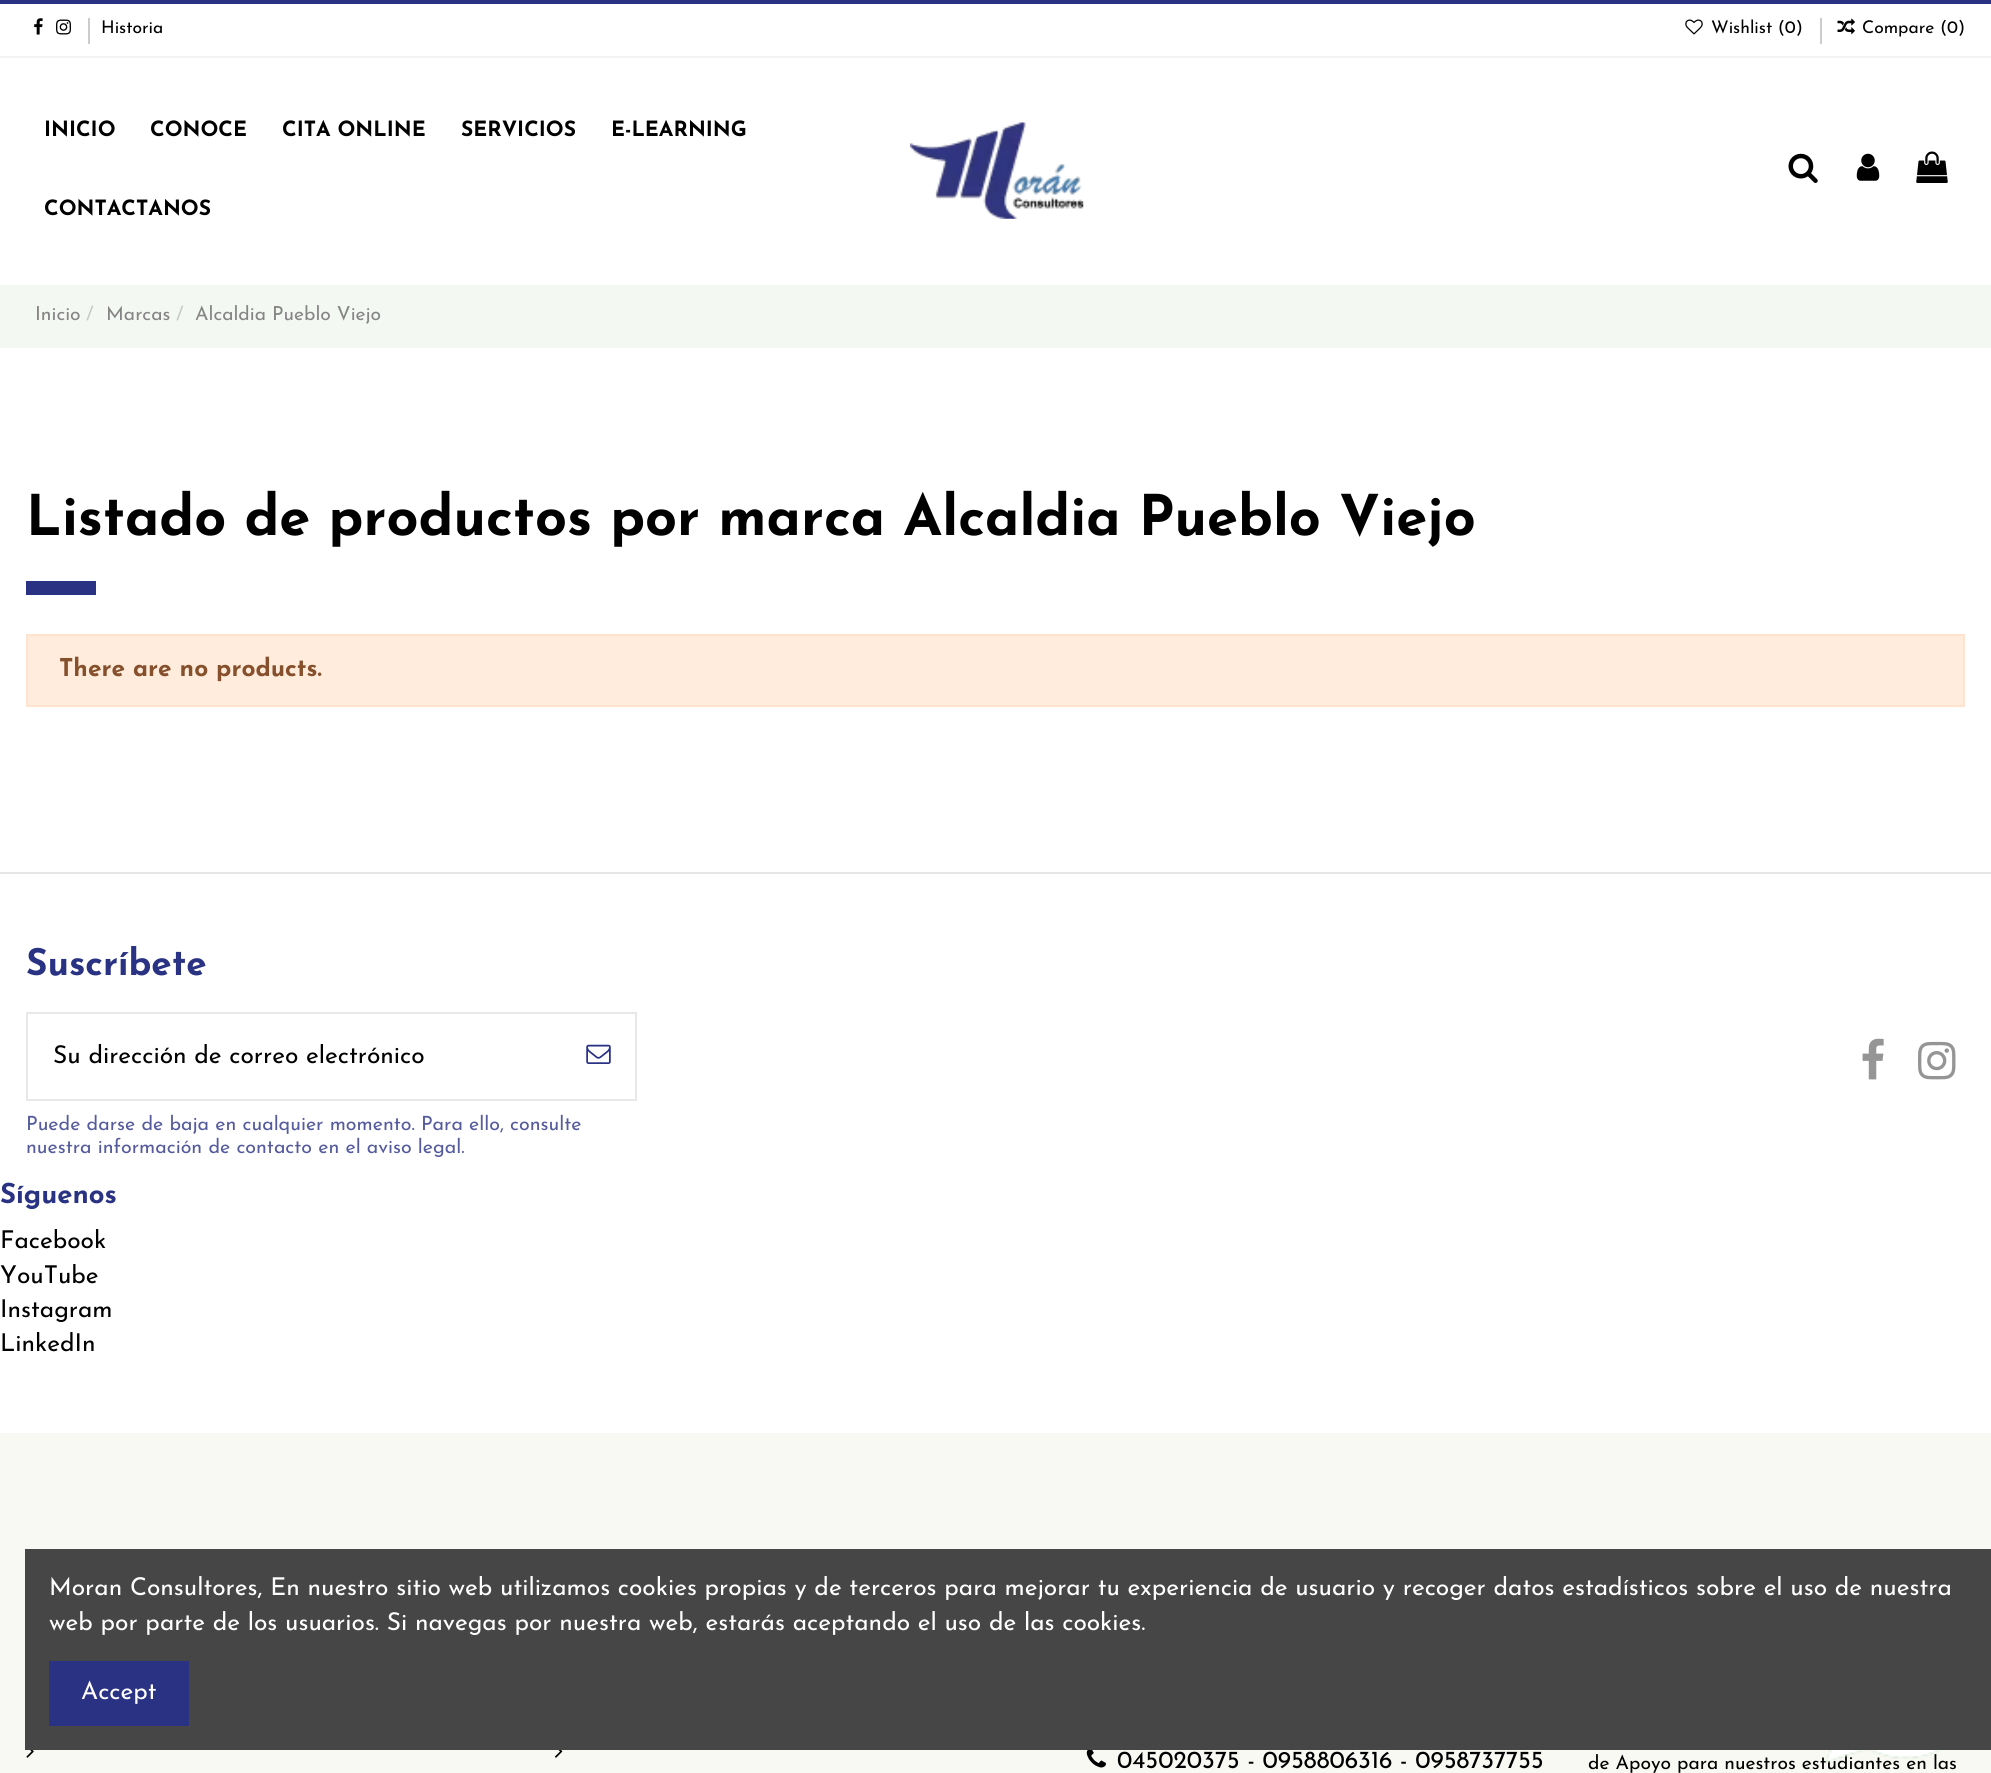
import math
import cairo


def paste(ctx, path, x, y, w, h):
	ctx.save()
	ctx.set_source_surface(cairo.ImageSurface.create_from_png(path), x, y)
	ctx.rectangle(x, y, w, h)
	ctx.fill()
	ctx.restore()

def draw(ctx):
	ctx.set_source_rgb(1, 1, 1)
	ctx.paint()
	ctx.set_source_rgb(0.165, 0.196, 0.514)
	ctx.rectangle(0, 0, 1991, 4)
	ctx.fill()
	ctx.set_source_rgb(0.953, 0.953, 0.953)
	ctx.rectangle(0, 56, 1991, 2)
	ctx.fill()
	paste(ctx, 'media/1.png', 34, 18, 9, 17)
	paste(ctx, 'media/2.png', 56, 19, 15, 16)
	ctx.set_source_rgb(0.8, 0.8, 0.8)
	ctx.rectangle(88, 18, 2, 26)
	ctx.fill()
	ctx.select_font_face('Josefin Sans')
	ctx.set_font_size(17.5)
	ctx.set_source_rgb(0, 0, 0)
	ctx.move_to(101, 33)
	ctx.show_text('Historia')
	paste(ctx, 'media/3.png', 1685, 19, 18, 16)
	ctx.move_to(1711, 33)
	ctx.show_text('Wishlist (0)')
	ctx.set_source_rgb(0.8, 0.8, 0.8)
	ctx.rectangle(1820, 18, 2, 26)
	ctx.fill()
	paste(ctx, 'media/4.png', 1837, 18, 18, 17)
	ctx.set_source_rgb(0, 0, 0)
	ctx.move_to(1862, 33)
	ctx.show_text('Compare (0)')
	ctx.select_font_face('Josefin Sans', cairo.FONT_SLANT_NORMAL, cairo.FONT_WEIGHT_BOLD)
	ctx.set_font_size(21)
	for x, y, s in [
		(44, 136, 'INICIO'),
		(150, 136, 'CONOCE'),
		(282, 136, 'CITA ONLINE'),
		(461, 136, 'SERVICIOS'),
		(611, 136, 'E-LEARNING'),
		(44, 215, 'CONTACTANOS'),
	]:
		ctx.move_to(x, y)
		ctx.show_text(s)
	paste(ctx, 'media/5.png', 910, 122, 174, 97)
	paste(ctx, 'media/6.png', 1788, 153, 30, 30)
	paste(ctx, 'media/7.png', 1856, 153, 24, 28)
	paste(ctx, 'media/8.png', 1916, 151, 32, 32)
	ctx.set_source_rgb(0.957, 0.969, 0.949)
	ctx.rectangle(0, 285, 1991, 63)
	ctx.fill()
	ctx.select_font_face('Josefin Sans')
	ctx.set_font_size(19.25)
	ctx.set_source_rgb(0.522, 0.522, 0.522)
	ctx.move_to(35, 320)
	ctx.show_text('Inicio')
	ctx.set_source_rgb(0.784, 0.788, 0.776)
	ctx.move_to(86, 320)
	ctx.show_text('/')
	ctx.set_source_rgb(0.522, 0.522, 0.522)
	ctx.move_to(106, 320)
	ctx.show_text('Marcas')
	ctx.set_source_rgb(0.784, 0.788, 0.776)
	ctx.move_to(176, 320)
	ctx.show_text('/')
	ctx.set_source_rgb(0.522, 0.522, 0.522)
	ctx.move_to(195, 320)
	ctx.show_text('Alcaldia Pueblo Viejo')
	ctx.select_font_face('Josefin Sans', cairo.FONT_SLANT_NORMAL, cairo.FONT_WEIGHT_BOLD)
	ctx.set_font_size(56)
	ctx.set_source_rgb(0, 0, 0)
	ctx.move_to(26, 535)
	ctx.show_text('Listado de productos por marca Alcaldia Pueblo Viejo')
	ctx.set_source_rgb(0.165, 0.196, 0.514)
	ctx.rectangle(26, 581, 70, 14)
	ctx.fill()
	ctx.set_source_rgb(1, 0.922, 0.863)
	ctx.rectangle(27, 635, 1937, 71)
	ctx.fill_preserve()
	ctx.set_source_rgb(1, 0.89, 0.812)
	ctx.stroke()
	ctx.set_font_size(24.5)
	ctx.set_source_rgb(0.522, 0.314, 0.169)
	ctx.move_to(59, 676)
	ctx.show_text('There are no products.')
	ctx.set_source_rgb(0.976, 0.973, 0.957)
	ctx.rectangle(0, 1433, 1991, 340)
	ctx.fill()
	ctx.set_source_rgb(0.902, 0.902, 0.902)
	ctx.rectangle(0, 872, 1991, 2)
	ctx.fill()
	ctx.set_font_size(36.75)
	ctx.set_source_rgb(0.165, 0.196, 0.514)
	ctx.move_to(26, 975)
	ctx.show_text('Suscríbete')
	ctx.rectangle(27, 1013, 609, 87)
	ctx.set_source_rgb(0.91, 0.91, 0.91)
	ctx.stroke()
	ctx.select_font_face('Josefin Sans')
	ctx.set_font_size(24.5)
	ctx.set_source_rgb(0, 0, 0)
	ctx.move_to(53, 1063)
	ctx.show_text('Su dirección de correo electrónico')
	paste(ctx, 'media/9.png', 586, 1044, 25, 20)
	ctx.set_font_size(19.6)
	ctx.set_source_rgb(0.333, 0.357, 0.612)
	ctx.move_to(26, 1130)
	ctx.show_text('Puede darse de baja en cualquier momento. Para ello, consulte')
	ctx.move_to(26, 1153)
	ctx.show_text('nuestra información de contacto en el aviso legal.')
	paste(ctx, 'media/10.png', 1862, 1038, 22, 42)
	paste(ctx, 'media/11.png', 1918, 1041, 38, 39)
	ctx.select_font_face('Josefin Sans', cairo.FONT_SLANT_NORMAL, cairo.FONT_WEIGHT_BOLD)
	ctx.set_font_size(27.5)
	ctx.set_source_rgb(0.165, 0.196, 0.514)
	ctx.move_to(0, 1203)
	ctx.show_text('Síguenos')
	ctx.select_font_face('Josefin Sans')
	ctx.set_font_size(24.5)
	ctx.set_source_rgb(0, 0, 0)
	for x, y, s in [
		(0, 1248, 'Facebook'),
		(0, 1283, 'YouTube'),
		(0, 1317, 'Instagram'),
		(0, 1351, 'LinkedIn'),
	]:
		ctx.move_to(x, y)
		ctx.show_text(s)
	paste(ctx, 'media/12.png', 26, 1750, 8, 8)
	paste(ctx, 'media/13.png', 555, 1750, 8, 8)
	paste(ctx, 'media/14.png', 1086, 1750, 20, 18)
	ctx.move_to(1117, 1768)
	ctx.show_text('045020375 - 0958806316 - 0958737755')
	ctx.set_font_size(19.25)
	ctx.move_to(1588, 1769)
	ctx.show_text('de Apoyo para nuestros estudiantes en las')
	paste(ctx, 'media/15.png', 1825, 1750, 119, 13)
	ctx.set_source_rgb(0.275, 0.275, 0.275)
	ctx.rectangle(25, 1549, 1966, 201)
	ctx.fill()
	ctx.set_font_size(24.5)
	ctx.set_source_rgb(1, 1, 1)
	ctx.move_to(49, 1595)
	ctx.show_text('Moran Consultores, En nuestro sitio web utilizamos cookies propias y de terceros para mejorar tu experiencia de usuario y recoger datos estadísticos sobre el uso de nuestra')
	ctx.move_to(49, 1630)
	ctx.show_text('web por parte de los usuarios. Si navegas por nuestra web, estarás aceptando el uso de las cookies.')
	ctx.set_source_rgb(0.165, 0.196, 0.514)
	ctx.rectangle(49, 1661, 140, 65)
	ctx.fill()
	ctx.set_source_rgb(1, 1, 1)
	ctx.move_to(81, 1699)
	ctx.show_text('Accept')


surface = cairo.ImageSurface(cairo.FORMAT_RGB24, 1991, 1773)
ctx = cairo.Context(surface)
options = cairo.FontOptions()
options.set_hint_metrics(cairo.HINT_METRICS_OFF)
options.set_hint_style(cairo.HINT_STYLE_NONE)
ctx.set_font_options(options)
ctx.set_miter_limit(4)
draw(ctx)
surface.write_to_png('image.png')
